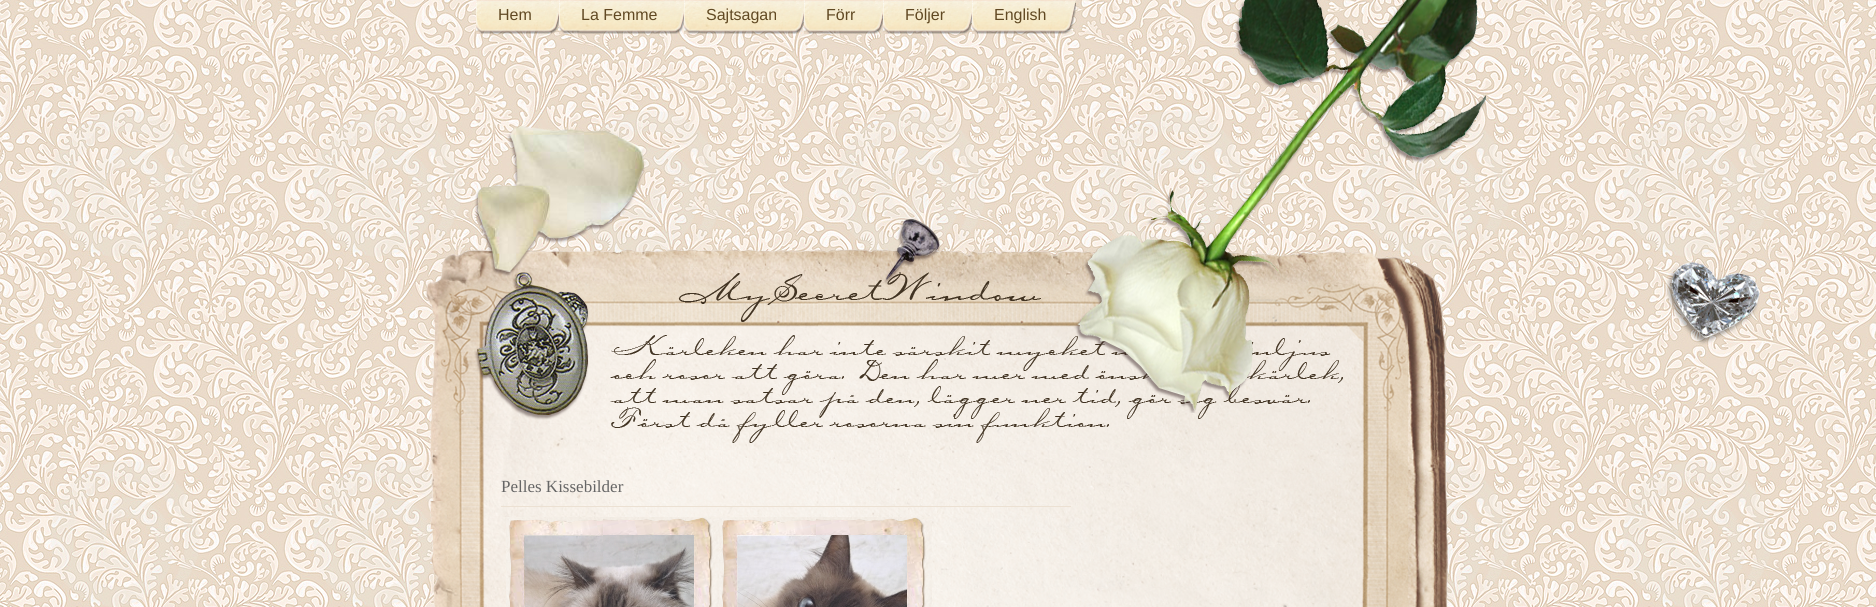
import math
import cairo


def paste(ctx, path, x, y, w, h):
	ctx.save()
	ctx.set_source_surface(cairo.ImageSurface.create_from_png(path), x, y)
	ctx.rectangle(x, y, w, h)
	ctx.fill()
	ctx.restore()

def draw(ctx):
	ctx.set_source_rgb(1, 1, 1)
	ctx.paint()
	paste(ctx, 'media/1.png', 0, 0, 1876, 607)
	paste(ctx, 'media/2.png', 426, 126, 1021, 383)
	paste(ctx, 'media/3.png', 481, 0, 78, 34)
	paste(ctx, 'media/4.png', 476, 0, 5, 34)
	ctx.select_font_face('Liberation Sans')
	ctx.set_font_size(16)
	ctx.set_source_rgb(0.38, 0.286, 0.137)
	ctx.move_to(498, 20)
	ctx.show_text('Hem')
	paste(ctx, 'media/5.png', 564, 0, 120, 34)
	paste(ctx, 'media/4.png', 559, 0, 5, 34)
	ctx.move_to(581, 20)
	ctx.show_text('La Femme')
	paste(ctx, 'media/6.png', 689, 0, 115, 34)
	paste(ctx, 'media/4.png', 684, 0, 5, 34)
	ctx.move_to(706, 20)
	ctx.show_text('Sajtsagan')
	paste(ctx, 'media/7.png', 809, 0, 74, 34)
	paste(ctx, 'media/4.png', 804, 0, 5, 34)
	ctx.move_to(826, 20)
	ctx.show_text('Förr')
	paste(ctx, 'media/8.png', 888, 0, 84, 34)
	paste(ctx, 'media/4.png', 883, 0, 5, 34)
	ctx.move_to(905, 20)
	ctx.show_text('Följer')
	paste(ctx, 'media/10.png', 1074, 0, 686, 413)
	paste(ctx, 'media/9.png', 977, 0, 99, 34)
	paste(ctx, 'media/4.png', 972, 0, 5, 34)
	ctx.move_to(994, 20)
	ctx.show_text('English')
	ctx.select_font_face('Liberation Serif', cairo.FONT_SLANT_ITALIC)
	ctx.set_font_size(15)
	ctx.set_source_rgb(0.988, 0.969, 0.941)
	for x, y, s in [
		(725, 83, 'tt'),
		(755, 83, 'st'),
		(781, 83, 't'),
		(840, 83, 'mli'),
		(984, 83, 'emli'),
	]:
		ctx.move_to(x, y)
		ctx.show_text(s)
	paste(ctx, 'media/11.png', 430, 450, 1018, 157)
	ctx.set_source_rgb(0.922, 0.882, 0.827)
	ctx.rectangle(501, 506, 570, 1)
	ctx.fill()
	ctx.select_font_face('Liberation Serif')
	ctx.set_font_size(17)
	ctx.set_source_rgb(0.4, 0.4, 0.4)
	ctx.move_to(501, 492)
	ctx.show_text('Pelles Kissebilder')
	paste(ctx, 'media/12.png', 506, 517, 97, 90)
	paste(ctx, 'media/13.png', 603, 517, 116, 90)
	paste(ctx, 'media/14.png', 524, 535, 170, 72)
	paste(ctx, 'media/12.png', 719, 517, 97, 90)
	paste(ctx, 'media/13.png', 816, 517, 116, 90)
	paste(ctx, 'media/15.png', 737, 535, 170, 72)


surface = cairo.ImageSurface(cairo.FORMAT_RGB24, 1876, 607)
ctx = cairo.Context(surface)
options = cairo.FontOptions()
options.set_hint_metrics(cairo.HINT_METRICS_OFF)
options.set_hint_style(cairo.HINT_STYLE_NONE)
ctx.set_font_options(options)
ctx.set_miter_limit(4)
draw(ctx)
surface.write_to_png('image.png')
